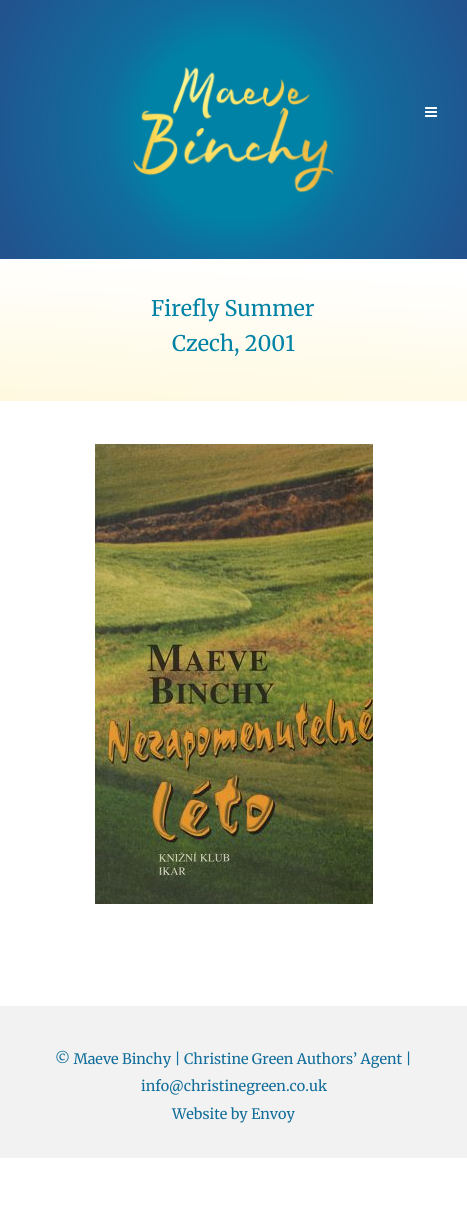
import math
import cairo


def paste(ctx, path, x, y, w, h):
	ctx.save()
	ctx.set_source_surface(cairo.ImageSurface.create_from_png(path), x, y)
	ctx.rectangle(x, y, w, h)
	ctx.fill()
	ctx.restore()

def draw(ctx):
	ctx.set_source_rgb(1, 1, 1)
	ctx.paint()
	gradient = cairo.RadialGradient(234, 129, 0, 234, 129, 267)
	gradient.add_color_stop_rgba(0.33, 0, 0.51, 0.651, 1)
	gradient.add_color_stop_rgba(0.49, 0.067, 0.427, 0.62, 1)
	gradient.add_color_stop_rgba(1, 0.137, 0.318, 0.553, 1)
	ctx.set_source(gradient)
	ctx.rectangle(0, 0, 467, 259)
	ctx.fill()
	paste(ctx, 'media/1.png', 133, 67, 201, 126)
	paste(ctx, 'media/2.png', 425, 107, 12, 10)
	gradient = cairo.LinearGradient(229, 413, 238, 240)
	gradient.add_color_stop_rgba(0, 1, 0.976, 0.875, 1)
	gradient.add_color_stop_rgba(0.87, 1, 1, 1, 1)
	ctx.set_source(gradient)
	ctx.rectangle(0, 262, 467, 139)
	ctx.fill()
	ctx.select_font_face('Merriweather Light')
	ctx.set_font_size(21.5)
	ctx.set_source_rgb(0, 0.51, 0.651)
	ctx.move_to(151, 316)
	ctx.show_text('Firefly Summer')
	ctx.move_to(172, 351)
	ctx.show_text('Czech, 2001')
	paste(ctx, 'media/3.png', 95, 444, 278, 460)
	ctx.set_source_rgb(0.949, 0.949, 0.949)
	ctx.rectangle(0, 1006, 467, 152)
	ctx.fill()
	ctx.set_font_size(14.4)
	ctx.set_source_rgb(0.067, 0.427, 0.604)
	for x, y, s in [
		(55, 1064, '© Maeve Binchy | Christine Green Authors’ Agent |'),
		(141, 1091, 'info@christinegreen.co.uk'),
		(172, 1119, 'Website by Envoy'),
	]:
		ctx.move_to(x, y)
		ctx.show_text(s)


surface = cairo.ImageSurface(cairo.FORMAT_RGB24, 467, 1230)
ctx = cairo.Context(surface)
options = cairo.FontOptions()
options.set_hint_metrics(cairo.HINT_METRICS_OFF)
options.set_hint_style(cairo.HINT_STYLE_NONE)
ctx.set_font_options(options)
ctx.set_miter_limit(4)
draw(ctx)
surface.write_to_png('image.png')
